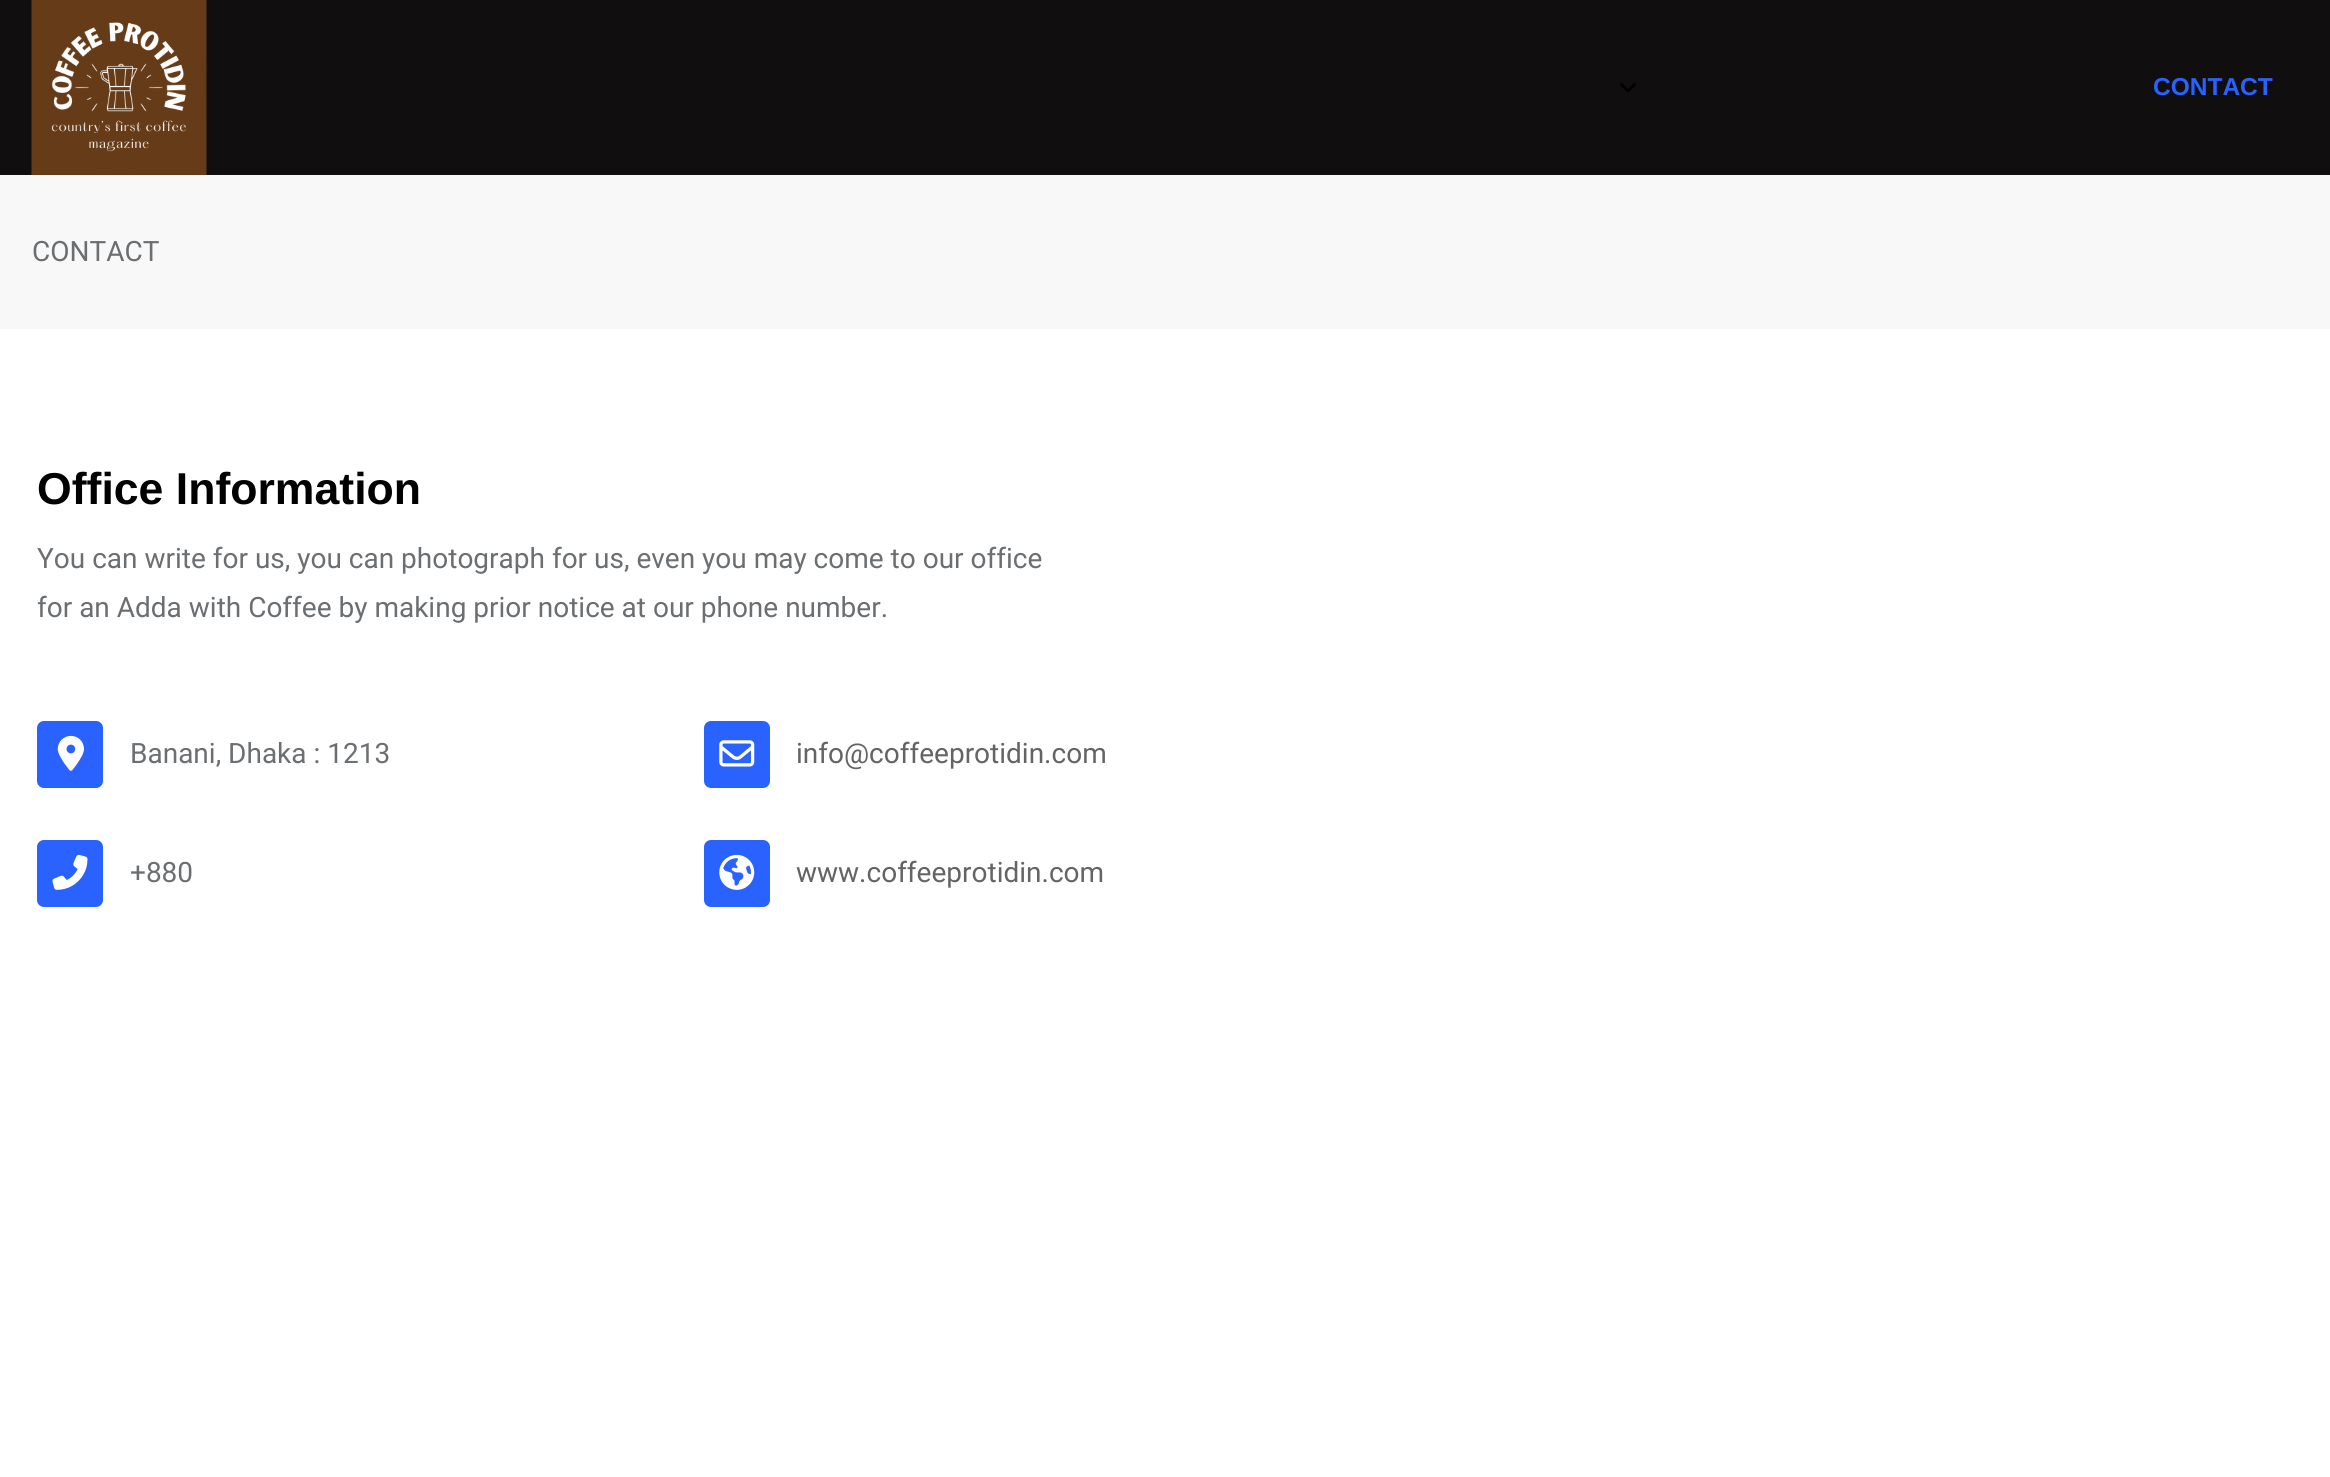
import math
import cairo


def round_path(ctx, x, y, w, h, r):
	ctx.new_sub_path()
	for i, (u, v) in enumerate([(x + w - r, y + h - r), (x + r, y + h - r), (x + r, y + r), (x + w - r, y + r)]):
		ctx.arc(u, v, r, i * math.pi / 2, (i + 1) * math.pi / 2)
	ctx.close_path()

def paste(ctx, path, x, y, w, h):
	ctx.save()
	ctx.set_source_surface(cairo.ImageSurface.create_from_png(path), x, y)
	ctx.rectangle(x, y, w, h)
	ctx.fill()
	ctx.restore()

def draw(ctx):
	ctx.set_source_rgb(1, 1, 1)
	ctx.paint()
	ctx.set_source_rgb(0.063, 0.055, 0.059)
	ctx.rectangle(0, 0, 2330, 175)
	ctx.fill()
	paste(ctx, 'media/1.png', 31, 0, 176, 175)
	paste(ctx, 'media/2.png', 1620, 83, 16, 9)
	ctx.select_font_face('Liberation Sans', cairo.FONT_SLANT_NORMAL, cairo.FONT_WEIGHT_BOLD)
	ctx.set_font_size(24.5)
	ctx.set_source_rgb(0.161, 0.384, 1)
	ctx.move_to(2153, 95)
	ctx.show_text('CONTACT')
	ctx.set_source_rgb(0.969, 0.969, 0.969)
	ctx.rectangle(0, 175, 2330, 154)
	ctx.fill()
	ctx.select_font_face('Roboto')
	ctx.set_font_size(28)
	ctx.set_source_rgb(0.424, 0.435, 0.447)
	ctx.move_to(32, 261)
	ctx.show_text('CONTACT')
	ctx.select_font_face('Liberation Sans', cairo.FONT_SLANT_NORMAL, cairo.FONT_WEIGHT_BOLD)
	ctx.set_font_size(44.6)
	ctx.set_source_rgb(0, 0, 0)
	ctx.move_to(37, 504)
	ctx.show_text('Office Information')
	ctx.select_font_face('Roboto')
	ctx.set_font_size(28)
	ctx.set_source_rgb(0.424, 0.435, 0.447)
	ctx.move_to(37, 568)
	ctx.show_text('You can write for us, you can photograph for us, even you may come to our office')
	ctx.move_to(37, 617)
	ctx.show_text('for an Adda with Coffee by making prior notice at our phone number.')
	ctx.set_source_rgb(0.161, 0.384, 1)
	round_path(ctx, 37, 721, 66, 67, 7)
	ctx.fill()
	paste(ctx, 'media/3.png', 57, 735, 27, 36)
	ctx.set_source_rgb(0.424, 0.435, 0.447)
	ctx.move_to(130, 763)
	ctx.show_text('Banani, Dhaka : 1213')
	ctx.set_source_rgb(0.161, 0.384, 1)
	round_path(ctx, 37, 840, 66, 67, 7)
	ctx.fill()
	paste(ctx, 'media/4.png', 52, 854, 36, 36)
	ctx.set_source_rgb(0.424, 0.435, 0.447)
	ctx.move_to(130, 882)
	ctx.show_text('+880')
	ctx.set_source_rgb(0.161, 0.384, 1)
	round_path(ctx, 704, 721, 66, 67, 7)
	ctx.fill()
	paste(ctx, 'media/5.png', 719, 740, 36, 27)
	ctx.set_source_rgb(0.392, 0.392, 0.392)
	ctx.move_to(796, 763)
	ctx.show_text('info@coffeeprotidin.com')
	ctx.set_source_rgb(0.161, 0.384, 1)
	round_path(ctx, 704, 840, 66, 67, 7)
	ctx.fill()
	paste(ctx, 'media/6.png', 719, 854, 36, 36)
	ctx.set_source_rgb(0.392, 0.392, 0.392)
	ctx.move_to(796, 882)
	ctx.show_text('www.coffeeprotidin.com')


surface = cairo.ImageSurface(cairo.FORMAT_RGB24, 2330, 1477)
ctx = cairo.Context(surface)
options = cairo.FontOptions()
options.set_hint_metrics(cairo.HINT_METRICS_OFF)
options.set_hint_style(cairo.HINT_STYLE_NONE)
ctx.set_font_options(options)
ctx.set_miter_limit(4)
draw(ctx)
surface.write_to_png('image.png')
